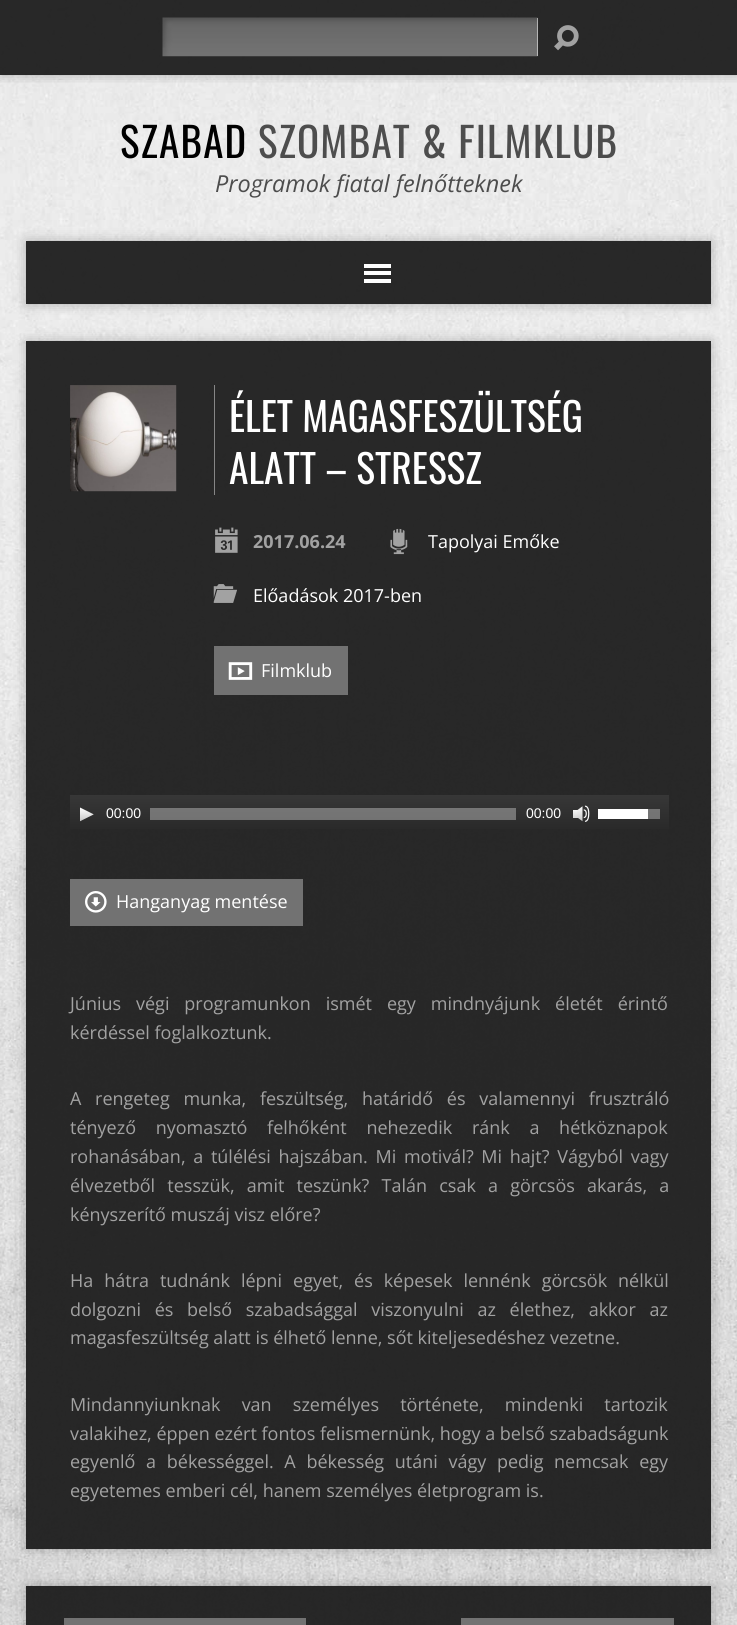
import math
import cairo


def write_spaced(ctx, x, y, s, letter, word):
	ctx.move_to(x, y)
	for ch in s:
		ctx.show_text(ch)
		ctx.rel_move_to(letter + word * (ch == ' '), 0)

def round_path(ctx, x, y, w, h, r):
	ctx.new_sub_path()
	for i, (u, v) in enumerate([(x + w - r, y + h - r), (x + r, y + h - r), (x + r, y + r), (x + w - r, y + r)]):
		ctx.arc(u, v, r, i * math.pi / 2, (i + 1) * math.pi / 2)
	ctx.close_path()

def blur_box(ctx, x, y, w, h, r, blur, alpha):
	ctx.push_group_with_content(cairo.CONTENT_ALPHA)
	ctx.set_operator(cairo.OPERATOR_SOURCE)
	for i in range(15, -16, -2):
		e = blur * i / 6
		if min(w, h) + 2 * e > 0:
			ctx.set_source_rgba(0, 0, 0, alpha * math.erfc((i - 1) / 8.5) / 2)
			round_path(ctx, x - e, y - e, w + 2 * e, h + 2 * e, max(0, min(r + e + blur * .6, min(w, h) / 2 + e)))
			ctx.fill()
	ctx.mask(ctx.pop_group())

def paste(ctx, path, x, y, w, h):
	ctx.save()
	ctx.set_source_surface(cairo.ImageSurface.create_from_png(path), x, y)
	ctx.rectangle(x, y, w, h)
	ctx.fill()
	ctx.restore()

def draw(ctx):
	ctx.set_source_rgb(1, 1, 1)
	ctx.paint()
	paste(ctx, 'media/1.png', 0, 0, 737, 1625)
	ctx.save()
	ctx.rectangle(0, 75, 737, 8)
	ctx.clip()
	ctx.set_source_rgb(0, 0, 0)
	blur_box(ctx, 0, 0, 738, 75, 0, 6, 0.25)
	ctx.restore()
	ctx.set_source_rgba(0.11, 0.11, 0.11, 0.94)
	ctx.rectangle(0, 0, 737, 75)
	ctx.fill()
	ctx.set_source_rgb(1, 1, 1)
	ctx.rectangle(537, 18, 1, 38)
	ctx.fill()
	paste(ctx, 'media/2.png', 162, 17, 376, 40)
	paste(ctx, 'media/3.png', 554, 25, 25, 26)
	ctx.select_font_face('Oswald')
	ctx.set_font_size(41)
	ctx.set_source_rgb(0, 0, 0)
	write_spaced(ctx, 120, 158, 'SZABAD', 1.25, 0)
	ctx.set_source_rgb(0.302, 0.302, 0.302)
	write_spaced(ctx, 258, 158, 'SZOMBAT & FILMKLUB', 1.25, 0)
	ctx.select_font_face('Open Sans', cairo.FONT_SLANT_ITALIC)
	ctx.set_font_size(23.4)
	ctx.move_to(215, 192)
	ctx.show_text('Programok fiatal felnőtteknek')
	ctx.save()
	ctx.set_fill_rule(cairo.FILL_RULE_EVEN_ODD)
	ctx.new_path()
	ctx.move_to(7, 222)
	ctx.line_to(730, 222)
	ctx.line_to(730, 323)
	ctx.line_to(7, 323)
	ctx.close_path()
	ctx.move_to(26, 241)
	ctx.line_to(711, 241)
	ctx.line_to(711, 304)
	ctx.line_to(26, 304)
	ctx.close_path()
	ctx.clip()
	ctx.set_source_rgb(0, 0, 0)
	blur_box(ctx, 26, 241, 685, 63, 0, 6, 0.25)
	ctx.restore()
	ctx.set_source_rgba(0.11, 0.11, 0.11, 0.94)
	ctx.rectangle(26, 241, 685, 63)
	ctx.fill()
	ctx.set_source_rgb(1, 1, 1)
	ctx.rectangle(364, 264, 27, 4)
	ctx.rectangle(364, 271, 27, 4)
	ctx.rectangle(364, 279, 27, 4)
	ctx.fill()
	ctx.save()
	ctx.set_fill_rule(cairo.FILL_RULE_EVEN_ODD)
	ctx.new_path()
	ctx.move_to(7, 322)
	ctx.line_to(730, 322)
	ctx.line_to(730, 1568)
	ctx.line_to(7, 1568)
	ctx.close_path()
	ctx.move_to(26, 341)
	ctx.line_to(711, 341)
	ctx.line_to(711, 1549)
	ctx.line_to(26, 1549)
	ctx.close_path()
	ctx.clip()
	ctx.set_source_rgb(0, 0, 0)
	blur_box(ctx, 26, 341, 685, 1208, 0, 6, 0.25)
	ctx.restore()
	ctx.set_source_rgba(0.11, 0.11, 0.11, 0.94)
	ctx.rectangle(26, 341, 685, 1208)
	ctx.fill()
	paste(ctx, 'media/4.png', 70, 385, 107, 107)
	ctx.set_source_rgb(0.525, 0.525, 0.525)
	ctx.rectangle(214, 385, 1, 110)
	ctx.fill()
	ctx.select_font_face('Oswald')
	ctx.set_font_size(39.5)
	ctx.set_source_rgb(1, 1, 1)
	ctx.move_to(229, 432)
	ctx.show_text('ÉLET MAGASFESZÜLTSÉG')
	ctx.move_to(229, 484)
	ctx.show_text('ALATT – STRESSZ')
	paste(ctx, 'media/5.png', 215, 527, 23, 26)
	ctx.select_font_face('Open Sans', cairo.FONT_SLANT_NORMAL, cairo.FONT_WEIGHT_BOLD)
	ctx.set_font_size(18)
	ctx.set_source_rgb(0.635, 0.635, 0.635)
	ctx.move_to(253, 548)
	ctx.show_text('2017.06.24')
	paste(ctx, 'media/6.png', 390, 528, 18, 27)
	ctx.select_font_face('Open Sans')
	ctx.set_source_rgb(1, 1, 1)
	ctx.move_to(428, 548)
	ctx.show_text('Tapolyai Emőke')
	paste(ctx, 'media/7.png', 213, 584, 24, 19)
	ctx.move_to(253, 602)
	ctx.show_text('Előadások 2017-ben')
	ctx.set_source_rgb(0.447, 0.447, 0.447)
	ctx.rectangle(214, 646, 134, 49)
	ctx.fill()
	paste(ctx, 'media/8.png', 228, 662, 25, 18)
	ctx.set_source_rgb(1, 1, 1)
	ctx.move_to(261, 677)
	ctx.show_text('Filmklub')
	gradient = cairo.LinearGradient(369, 795, 369, 833)
	gradient.add_color_stop_rgba(0, 0.216, 0.216, 0.216, 1)
	gradient.add_color_stop_rgba(1, 0.157, 0.157, 0.157, 1)
	ctx.set_source(gradient)
	ctx.rectangle(70, 795, 599, 34)
	ctx.fill()
	paste(ctx, 'media/9.png', 80, 807, 14, 15)
	ctx.select_font_face('Liberation Sans')
	ctx.set_font_size(14)
	ctx.set_source_rgb(1, 1, 1)
	ctx.move_to(106, 818)
	ctx.show_text('00:00')
	ctx.set_source_rgba(1, 1, 1, 0.33)
	ctx.rectangle(150, 808, 366, 12)
	ctx.fill()
	ctx.set_source_rgb(1, 1, 1)
	ctx.move_to(526, 818)
	ctx.show_text('00:00')
	paste(ctx, 'media/10.png', 573, 805, 17, 17)
	ctx.rectangle(598, 809, 50, 10)
	ctx.fill()
	ctx.set_source_rgba(1, 1, 1, 0.33)
	ctx.rectangle(648, 809, 12, 10)
	ctx.fill()
	ctx.set_source_rgb(0.447, 0.447, 0.447)
	ctx.rectangle(70, 879, 233, 47)
	ctx.fill()
	paste(ctx, 'media/11.png', 85, 891, 22, 22)
	ctx.select_font_face('Open Sans')
	ctx.set_font_size(18)
	ctx.set_source_rgb(1, 1, 1)
	ctx.move_to(116, 908)
	ctx.show_text('Hanganyag mentése')
	ctx.set_source_rgb(0.635, 0.635, 0.635)
	write_spaced(ctx, 70, 1010, 'Június végi programunkon ismét egy mindnyájunk életét érintő', 0, 10.25)
	ctx.move_to(70, 1039)
	ctx.show_text('kérdéssel foglalkoztunk.')
	write_spaced(ctx, 70, 1105, 'A rengeteg munka, feszültség, határidő és valamennyi frusztráló', 0, 9)
	write_spaced(ctx, 70, 1134, 'tényező nyomasztó felhőként nehezedik ránk a hétköznapok', 0, 15)
	write_spaced(ctx, 70, 1163, 'rohanásában, a túlélési hajszában. Mi motivál? Mi hajt? Vágyból vagy', 0, 3)
	write_spaced(ctx, 70, 1192, 'élvezetből tesszük, amit teszünk? Talán csak a görcsös akarás, a', 0, 7.5)
	ctx.move_to(70, 1221)
	ctx.show_text('kényszerítő muszáj visz előre?')
	write_spaced(ctx, 70, 1287, 'Ha hátra tudnánk lépni egyet, és képesek lennénk görcsök nélkül', 0, 6.25)
	write_spaced(ctx, 70, 1316, 'dolgozni és belső szabadsággal viszonyulni az élethez, akkor az', 0, 9)
	ctx.move_to(70, 1344)
	ctx.show_text('magasfeszültség alatt is élhető lenne, sőt kiteljesedéshez vezetne.')
	write_spaced(ctx, 70, 1411, 'Mindannyiunknak van személyes története, mindenki tartozik', 0, 16.5)
	ctx.move_to(70, 1440)
	ctx.show_text('valakihez, éppen ezért fontos felismernünk, hogy a belső szabadságunk')
	write_spaced(ctx, 70, 1468, 'egyenlő a békességgel. A békesség utáni vágy pedig nemcsak egy', 0, 6)
	ctx.move_to(70, 1497)
	ctx.show_text('egyetemes emberi cél, hanem személyes életprogram is.')
	ctx.save()
	ctx.set_fill_rule(cairo.FILL_RULE_EVEN_ODD)
	ctx.new_path()
	ctx.move_to(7, 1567)
	ctx.line_to(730, 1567)
	ctx.line_to(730, 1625)
	ctx.line_to(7, 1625)
	ctx.close_path()
	ctx.move_to(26, 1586)
	ctx.line_to(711, 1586)
	ctx.line_to(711, 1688)
	ctx.line_to(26, 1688)
	ctx.close_path()
	ctx.clip()
	ctx.set_source_rgb(0, 0, 0)
	blur_box(ctx, 26, 1586, 685, 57, 0, 6, 0.25)
	ctx.restore()
	ctx.set_source_rgba(0.11, 0.11, 0.11, 0.94)
	ctx.rectangle(26, 1586, 685, 39)
	ctx.fill()
	ctx.set_source_rgb(0.447, 0.447, 0.447)
	ctx.rectangle(64, 1618, 242, 7)
	ctx.rectangle(461, 1618, 213, 7)
	ctx.fill()


surface = cairo.ImageSurface(cairo.FORMAT_RGB24, 737, 1625)
ctx = cairo.Context(surface)
options = cairo.FontOptions()
options.set_hint_metrics(cairo.HINT_METRICS_OFF)
options.set_hint_style(cairo.HINT_STYLE_NONE)
ctx.set_font_options(options)
ctx.set_miter_limit(4)
draw(ctx)
surface.write_to_png('image.png')
